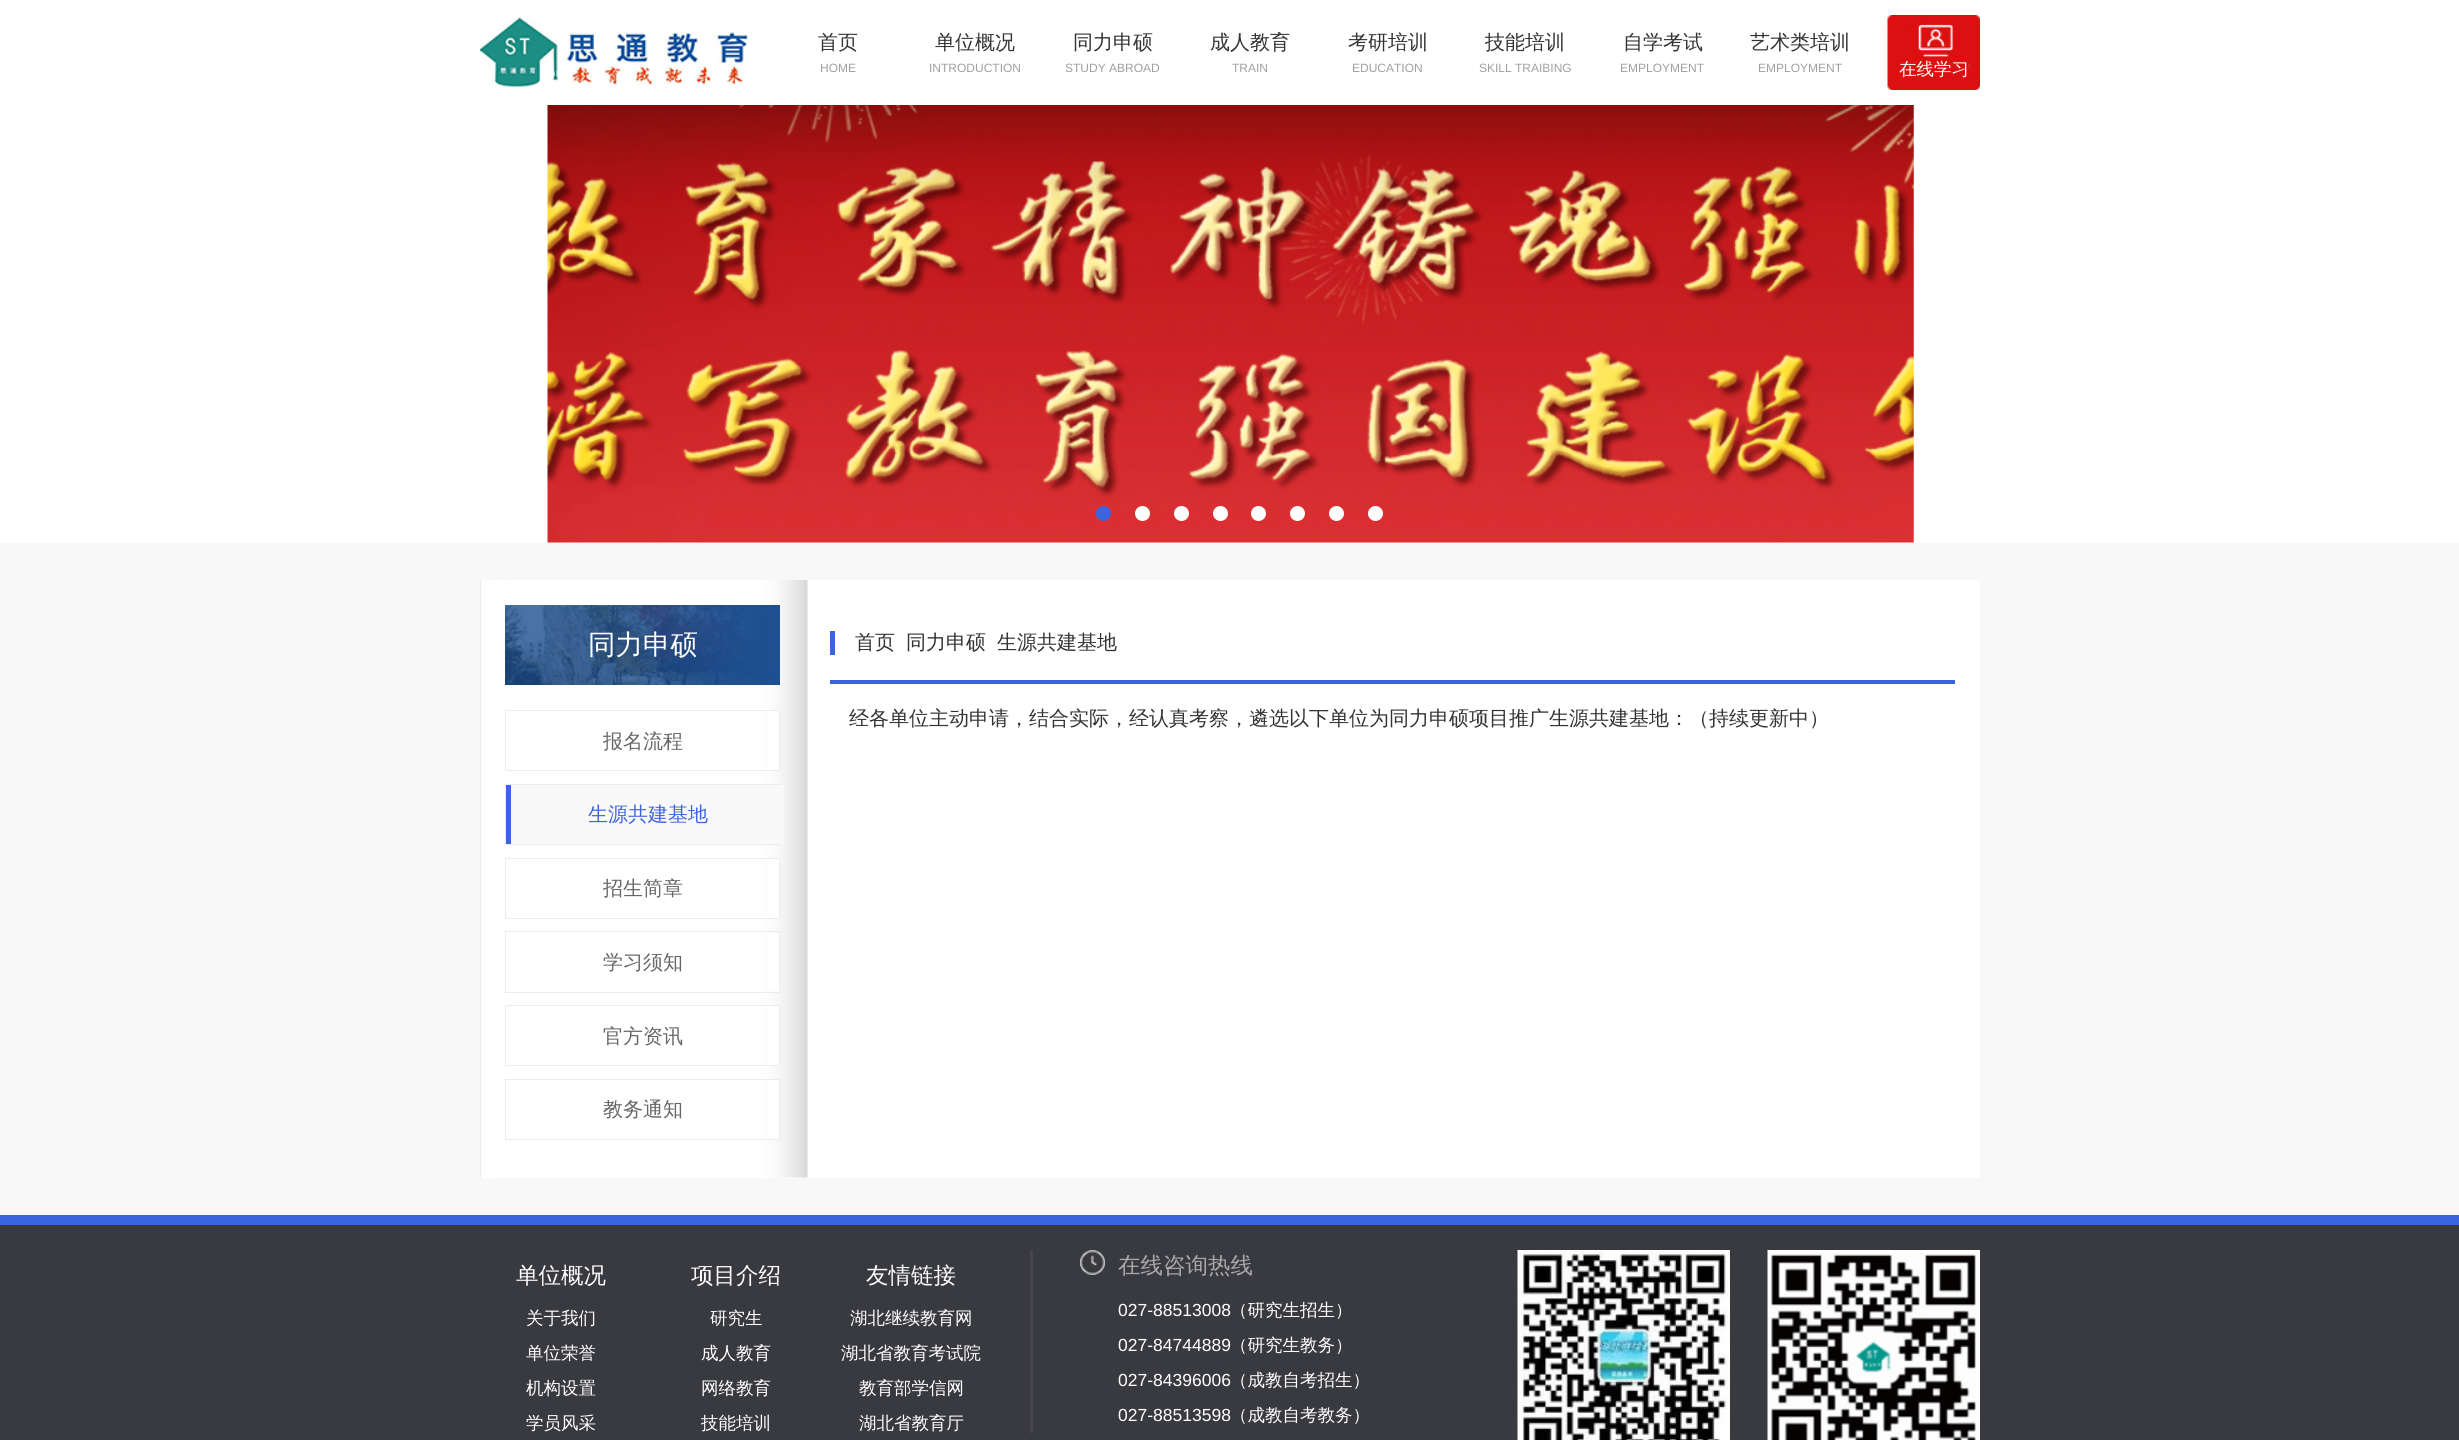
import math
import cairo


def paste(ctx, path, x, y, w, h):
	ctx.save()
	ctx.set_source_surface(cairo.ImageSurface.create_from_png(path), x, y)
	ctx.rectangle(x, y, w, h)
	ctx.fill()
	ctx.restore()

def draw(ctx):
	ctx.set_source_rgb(1, 1, 1)
	ctx.paint()
	paste(ctx, 'media/1.png', 480, 17, 269, 71)
	ctx.select_font_face('WenQuanYi Zen Hei Medium')
	ctx.set_font_size(20)
	ctx.set_source_rgb(0.2, 0.2, 0.2)
	ctx.move_to(818, 49)
	ctx.show_text('首页')
	ctx.select_font_face('Liberation Sans')
	ctx.set_font_size(12)
	ctx.set_source_rgb(0.627, 0.627, 0.627)
	ctx.move_to(820, 72)
	ctx.show_text('HOME')
	ctx.select_font_face('WenQuanYi Zen Hei Medium')
	ctx.set_font_size(20)
	ctx.set_source_rgb(0.2, 0.2, 0.2)
	ctx.move_to(935, 49)
	ctx.show_text('单位概况')
	ctx.select_font_face('Liberation Sans')
	ctx.set_font_size(12)
	ctx.set_source_rgb(0.627, 0.627, 0.627)
	ctx.move_to(929, 72)
	ctx.show_text('INTRODUCTION')
	ctx.select_font_face('WenQuanYi Zen Hei Medium')
	ctx.set_font_size(20)
	ctx.set_source_rgb(0.2, 0.2, 0.2)
	ctx.move_to(1073, 49)
	ctx.show_text('同力申硕')
	ctx.select_font_face('Liberation Sans')
	ctx.set_font_size(12)
	ctx.set_source_rgb(0.627, 0.627, 0.627)
	ctx.move_to(1065, 72)
	ctx.show_text('STUDY ABROAD')
	ctx.select_font_face('WenQuanYi Zen Hei Medium')
	ctx.set_font_size(20)
	ctx.set_source_rgb(0.2, 0.2, 0.2)
	ctx.move_to(1210, 49)
	ctx.show_text('成人教育')
	ctx.select_font_face('Liberation Sans')
	ctx.set_font_size(12)
	ctx.set_source_rgb(0.627, 0.627, 0.627)
	ctx.move_to(1232, 72)
	ctx.show_text('TRAIN')
	ctx.select_font_face('WenQuanYi Zen Hei Medium')
	ctx.set_font_size(20)
	ctx.set_source_rgb(0.2, 0.2, 0.2)
	ctx.move_to(1348, 49)
	ctx.show_text('考研培训')
	ctx.select_font_face('Liberation Sans')
	ctx.set_font_size(12)
	ctx.set_source_rgb(0.627, 0.627, 0.627)
	ctx.move_to(1352, 72)
	ctx.show_text('EDUCATION')
	ctx.select_font_face('WenQuanYi Zen Hei Medium')
	ctx.set_font_size(20)
	ctx.set_source_rgb(0.2, 0.2, 0.2)
	ctx.move_to(1485, 49)
	ctx.show_text('技能培训')
	ctx.select_font_face('Liberation Sans')
	ctx.set_font_size(12)
	ctx.set_source_rgb(0.627, 0.627, 0.627)
	ctx.move_to(1479, 72)
	ctx.show_text('SKILL TRAIBING')
	ctx.select_font_face('WenQuanYi Zen Hei Medium')
	ctx.set_font_size(20)
	ctx.set_source_rgb(0.2, 0.2, 0.2)
	ctx.move_to(1623, 49)
	ctx.show_text('自学考试')
	ctx.select_font_face('Liberation Sans')
	ctx.set_font_size(12)
	ctx.set_source_rgb(0.627, 0.627, 0.627)
	ctx.move_to(1620, 72)
	ctx.show_text('EMPLOYMENT')
	ctx.select_font_face('WenQuanYi Zen Hei Medium')
	ctx.set_font_size(20)
	ctx.set_source_rgb(0.2, 0.2, 0.2)
	ctx.move_to(1750, 49)
	ctx.show_text('艺术类培训')
	ctx.select_font_face('Liberation Sans')
	ctx.set_font_size(12)
	ctx.set_source_rgb(0.627, 0.627, 0.627)
	ctx.move_to(1758, 72)
	ctx.show_text('EMPLOYMENT')
	paste(ctx, 'media/2.png', 1887, 15, 93, 75)
	ctx.select_font_face('WenQuanYi Zen Hei Medium')
	ctx.set_font_size(17.5)
	ctx.set_source_rgb(1, 1, 1)
	ctx.move_to(1899, 75)
	ctx.show_text('在线学习')
	paste(ctx, 'media/3.png', 547, 105, 1367, 438)
	ctx.set_source_rgb(0.235, 0.392, 0.878)
	ctx.arc(1103.5, 513.5, 7.5, 0, 2 * math.pi)
	ctx.fill()
	ctx.set_source_rgb(1, 1, 1)
	ctx.arc(1142.5, 513.5, 7.5, 0, 2 * math.pi)
	ctx.fill()
	ctx.arc(1181.5, 513.5, 7.5, 0, 2 * math.pi)
	ctx.fill()
	ctx.arc(1220.5, 513.5, 7.5, 0, 2 * math.pi)
	ctx.fill()
	ctx.arc(1258.5, 513.5, 7.5, 0, 2 * math.pi)
	ctx.fill()
	ctx.arc(1297.5, 513.5, 7.5, 0, 2 * math.pi)
	ctx.fill()
	ctx.arc(1336.5, 513.5, 7.5, 0, 2 * math.pi)
	ctx.fill()
	ctx.arc(1375.5, 513.5, 7.5, 0, 2 * math.pi)
	ctx.fill()
	ctx.set_source_rgb(0.969, 0.969, 0.969)
	ctx.rectangle(0, 543, 2459, 672)
	ctx.fill()
	ctx.set_source_rgb(1, 1, 1)
	ctx.rectangle(480, 580, 1500, 598)
	ctx.fill()
	paste(ctx, 'media/4.png', 480, 580, 328, 598)
	paste(ctx, 'media/5.png', 505, 605, 275, 80)
	ctx.set_font_size(27.5)
	ctx.move_to(588, 654)
	ctx.show_text('同力申硕')
	ctx.rectangle(505.5, 710.5, 274, 60)
	ctx.set_source_rgb(0.922, 0.922, 0.922)
	ctx.set_line_width(1)
	ctx.stroke()
	ctx.set_source_rgb(1, 1, 1)
	ctx.rectangle(768, 711, 11, 59)
	ctx.fill()
	ctx.set_font_size(20)
	ctx.set_source_rgb(0.4, 0.4, 0.4)
	ctx.move_to(603, 748)
	ctx.show_text('报名流程')
	ctx.rectangle(505.5, 784.5, 274, 60)
	ctx.set_source_rgb(0.922, 0.922, 0.922)
	ctx.stroke()
	ctx.set_source_rgb(0.976, 0.976, 0.976)
	ctx.rectangle(511, 785, 273, 59)
	ctx.fill()
	ctx.set_source_rgb(0.235, 0.392, 0.878)
	ctx.rectangle(506, 785, 5, 59)
	ctx.fill()
	ctx.move_to(588, 821)
	ctx.show_text('生源共建基地')
	ctx.rectangle(505.5, 858.5, 274, 60)
	ctx.set_source_rgb(0.922, 0.922, 0.922)
	ctx.stroke()
	ctx.set_source_rgb(1, 1, 1)
	ctx.rectangle(768, 859, 11, 59)
	ctx.fill()
	ctx.set_source_rgb(0.4, 0.4, 0.4)
	ctx.move_to(603, 895)
	ctx.show_text('招生简章')
	ctx.rectangle(505.5, 931.5, 274, 61)
	ctx.set_source_rgb(0.922, 0.922, 0.922)
	ctx.stroke()
	ctx.set_source_rgb(1, 1, 1)
	ctx.rectangle(768, 933, 11, 58)
	ctx.fill()
	ctx.set_source_rgb(0.4, 0.4, 0.4)
	ctx.move_to(603, 969)
	ctx.show_text('学习须知')
	ctx.rectangle(505.5, 1005.5, 274, 60)
	ctx.set_source_rgb(0.922, 0.922, 0.922)
	ctx.stroke()
	ctx.set_source_rgb(1, 1, 1)
	ctx.rectangle(768, 1006, 11, 59)
	ctx.fill()
	ctx.set_source_rgb(0.4, 0.4, 0.4)
	ctx.move_to(603, 1043)
	ctx.show_text('官方资讯')
	ctx.rectangle(505.5, 1079.5, 274, 60)
	ctx.set_source_rgb(0.922, 0.922, 0.922)
	ctx.stroke()
	ctx.set_source_rgb(1, 1, 1)
	ctx.rectangle(768, 1080, 11, 59)
	ctx.fill()
	ctx.set_source_rgb(0.4, 0.4, 0.4)
	ctx.move_to(603, 1116)
	ctx.show_text('教务通知')
	ctx.set_source_rgb(0.235, 0.392, 0.878)
	ctx.rectangle(830, 631, 5, 24)
	ctx.fill()
	ctx.rectangle(830, 680, 1125, 4)
	ctx.fill()
	ctx.set_source_rgb(0.2, 0.2, 0.2)
	for x, y, s in [
		(855, 649, '首页'),
		(906, 649, '同力申硕'),
		(997, 649, '生源共建基地'),
		(849, 725, '经各单位主动申请，结合实际，经认真考察，遴选以下单位为同力申硕项目推广生源共建基地：（持续更新中）'),
	]:
		ctx.move_to(x, y)
		ctx.show_text(s)
	ctx.set_source_rgb(0.224, 0.227, 0.247)
	ctx.rectangle(0, 1225, 2459, 215)
	ctx.fill()
	ctx.set_source_rgb(0.231, 0.392, 0.878)
	ctx.rectangle(0, 1215, 2459, 10)
	ctx.fill()
	ctx.set_font_size(22.5)
	ctx.set_source_rgb(1, 1, 1)
	ctx.move_to(516, 1283)
	ctx.show_text('单位概况')
	ctx.set_font_size(17.5)
	for x, y, s in [
		(526, 1324, '关于我们'),
		(526, 1359, '单位荣誉'),
		(526, 1394, '机构设置'),
		(526, 1429, '学员风采'),
	]:
		ctx.move_to(x, y)
		ctx.show_text(s)
	ctx.set_font_size(22.5)
	ctx.move_to(691, 1283)
	ctx.show_text('项目介绍')
	ctx.set_font_size(17.5)
	for x, y, s in [
		(710, 1324, '研究生'),
		(701, 1359, '成人教育'),
		(701, 1394, '网络教育'),
		(701, 1429, '技能培训'),
	]:
		ctx.move_to(x, y)
		ctx.show_text(s)
	ctx.set_font_size(22.5)
	ctx.move_to(866, 1283)
	ctx.show_text('友情链接')
	ctx.set_font_size(17.5)
	for x, y, s in [
		(850, 1324, '湖北继续教育网'),
		(841, 1359, '湖北省教育考试院'),
		(859, 1394, '教育部学信网'),
		(859, 1429, '湖北省教育厅'),
	]:
		ctx.move_to(x, y)
		ctx.show_text(s)
	ctx.set_source_rgb(0.271, 0.271, 0.29)
	ctx.rectangle(1030, 1250, 3, 183)
	ctx.fill()
	paste(ctx, 'media/6.png', 1080, 1250, 25, 25)
	ctx.set_font_size(22.5)
	ctx.set_source_rgb(0.663, 0.663, 0.675)
	ctx.move_to(1118, 1273)
	ctx.show_text('在线咨询热线')
	ctx.select_font_face('Liberation Sans')
	ctx.set_font_size(17.5)
	ctx.set_source_rgb(1, 1, 1)
	ctx.move_to(1118, 1316)
	ctx.show_text('027-88513008')
	ctx.select_font_face('WenQuanYi Zen Hei Medium')
	ctx.move_to(1230, 1316)
	ctx.show_text('（研究生招生）')
	ctx.select_font_face('Liberation Sans')
	ctx.move_to(1118, 1351)
	ctx.show_text('027-84744889')
	ctx.select_font_face('WenQuanYi Zen Hei Medium')
	ctx.move_to(1230, 1351)
	ctx.show_text('（研究生教务）')
	ctx.select_font_face('Liberation Sans')
	ctx.move_to(1118, 1386)
	ctx.show_text('027-84396006')
	ctx.select_font_face('WenQuanYi Zen Hei Medium')
	ctx.move_to(1230, 1386)
	ctx.show_text('（成教自考招生）')
	ctx.select_font_face('Liberation Sans')
	ctx.move_to(1118, 1421)
	ctx.show_text('027-88513598')
	ctx.select_font_face('WenQuanYi Zen Hei Medium')
	ctx.move_to(1230, 1421)
	ctx.show_text('（成教自考教务）')
	paste(ctx, 'media/7.png', 1517, 1250, 213, 190)
	paste(ctx, 'media/8.png', 1767, 1250, 213, 190)


surface = cairo.ImageSurface(cairo.FORMAT_RGB24, 2459, 1440)
ctx = cairo.Context(surface)
options = cairo.FontOptions()
options.set_hint_metrics(cairo.HINT_METRICS_OFF)
options.set_hint_style(cairo.HINT_STYLE_NONE)
ctx.set_font_options(options)
ctx.set_miter_limit(4)
draw(ctx)
surface.write_to_png('image.png')
